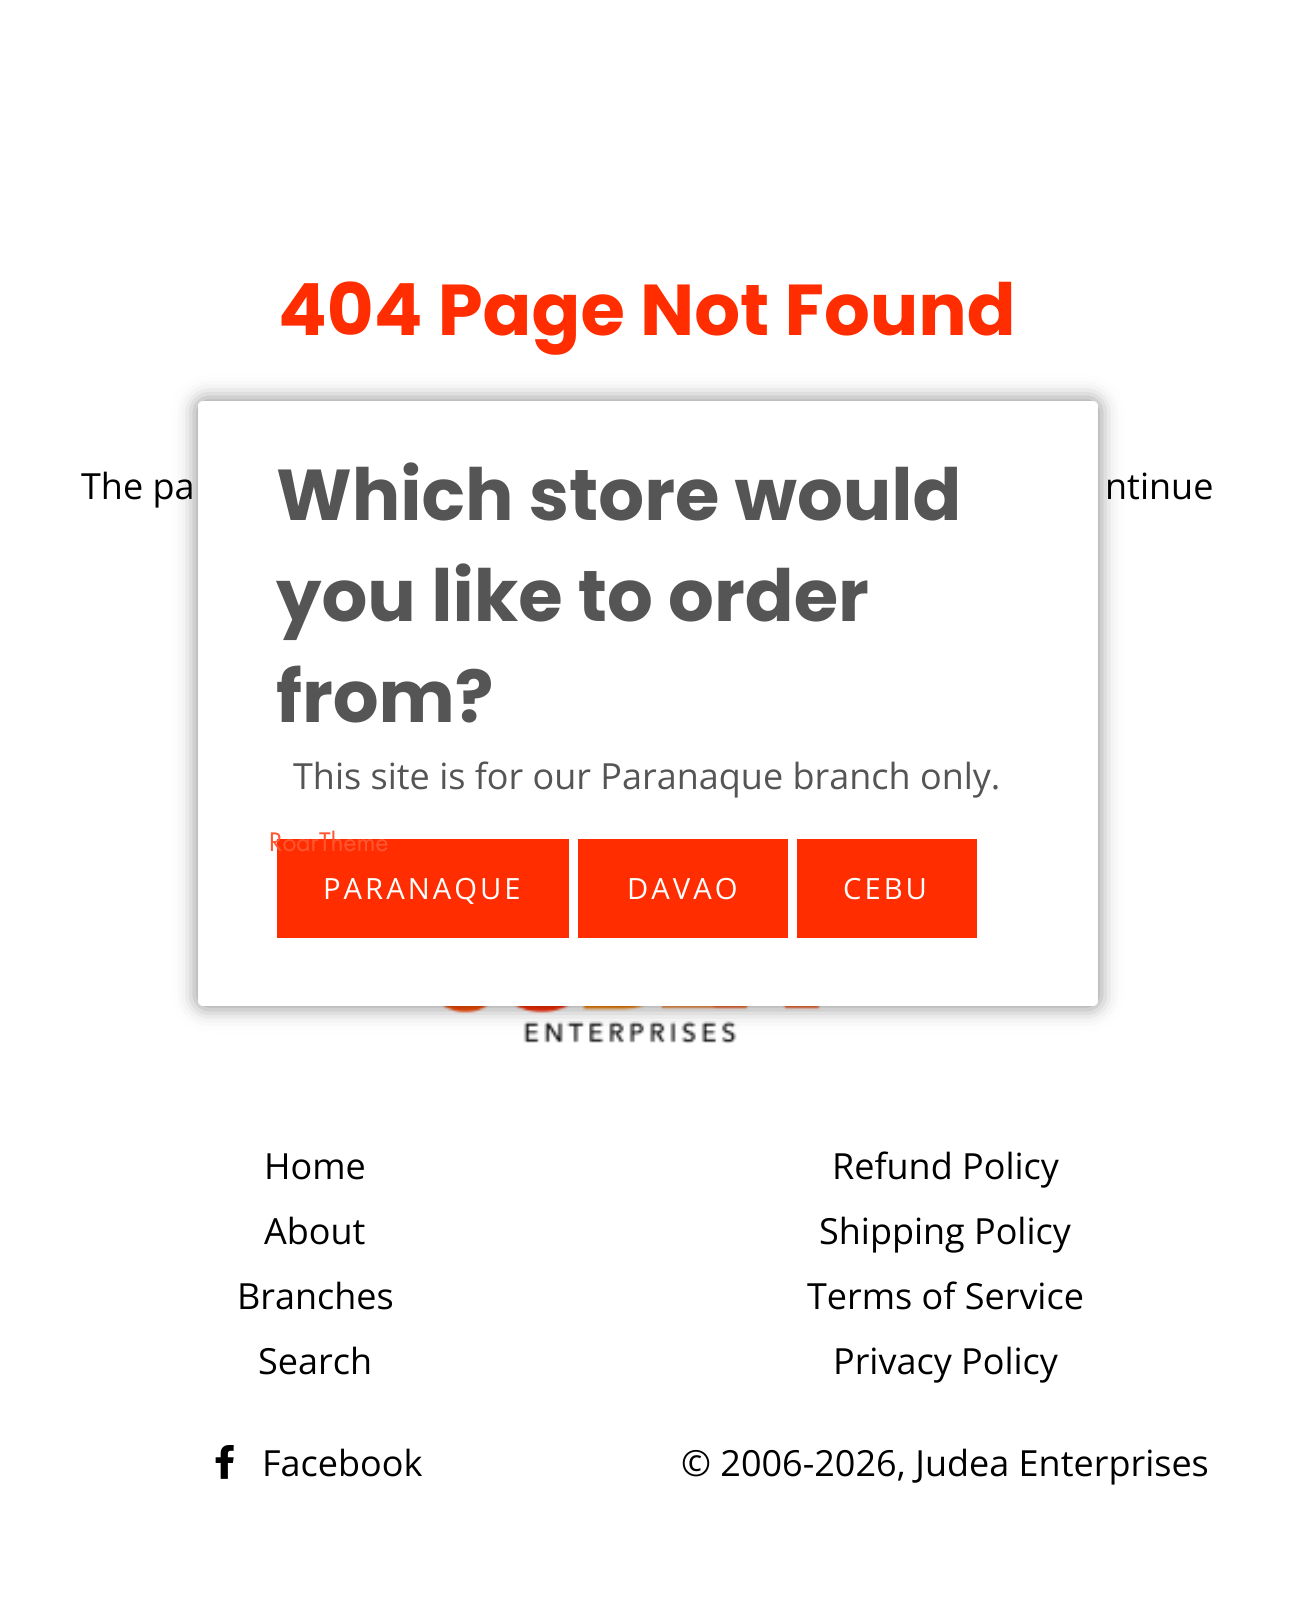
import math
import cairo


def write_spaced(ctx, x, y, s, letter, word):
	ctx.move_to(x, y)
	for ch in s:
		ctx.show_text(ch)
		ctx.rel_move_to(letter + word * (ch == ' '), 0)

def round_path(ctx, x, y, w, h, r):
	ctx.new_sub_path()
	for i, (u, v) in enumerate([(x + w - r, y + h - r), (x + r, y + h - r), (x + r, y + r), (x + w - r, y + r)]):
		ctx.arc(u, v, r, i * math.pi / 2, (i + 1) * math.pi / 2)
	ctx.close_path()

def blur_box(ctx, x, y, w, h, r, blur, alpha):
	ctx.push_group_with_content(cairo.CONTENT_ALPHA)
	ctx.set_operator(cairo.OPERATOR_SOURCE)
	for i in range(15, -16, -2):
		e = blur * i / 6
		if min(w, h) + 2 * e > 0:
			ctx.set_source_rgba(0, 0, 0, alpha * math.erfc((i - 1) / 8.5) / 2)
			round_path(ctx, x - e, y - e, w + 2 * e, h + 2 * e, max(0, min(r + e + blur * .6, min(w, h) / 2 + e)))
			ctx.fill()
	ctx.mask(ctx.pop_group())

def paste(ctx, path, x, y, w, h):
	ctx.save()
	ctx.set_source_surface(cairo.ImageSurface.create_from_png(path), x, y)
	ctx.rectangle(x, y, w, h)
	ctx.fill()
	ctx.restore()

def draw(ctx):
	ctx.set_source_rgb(1, 1, 1)
	ctx.paint()
	ctx.select_font_face('Poppins', cairo.FONT_SLANT_NORMAL, cairo.FONT_WEIGHT_BOLD)
	ctx.set_font_size(72)
	ctx.set_source_rgb(1, 0.176, 0)
	ctx.move_to(278, 335)
	ctx.show_text('404 Page Not Found')
	ctx.select_font_face('Open Sans')
	ctx.set_font_size(36)
	ctx.set_source_rgb(0, 0, 0)
	ctx.move_to(81, 499)
	ctx.show_text('The pa')
	ctx.move_to(1105, 499)
	ctx.show_text('ntinue')
	paste(ctx, 'media/1.png', 440, 1006, 381, 38)
	for x, y, s in [
		(264, 1179, 'Home'),
		(264, 1244, 'About'),
		(237, 1309, 'Branches'),
		(258, 1374, 'Search'),
		(832, 1179, 'Refund Policy'),
		(819, 1244, 'Shipping Policy'),
		(807, 1309, 'Terms of Service'),
		(833, 1374, 'Privacy Policy'),
	]:
		ctx.move_to(x, y)
		ctx.show_text(s)
	paste(ctx, 'media/2.png', 215, 1445, 19, 34)
	ctx.move_to(262, 1476)
	ctx.show_text('Facebook')
	ctx.move_to(681, 1476)
	ctx.show_text('© 2006-2026, Judea Enterprises')
	ctx.set_source_rgb(0, 0, 0)
	blur_box(ctx, 198, 401, 900, 605, 5, 11, 0.5)
	ctx.set_source_rgb(1, 1, 1)
	round_path(ctx, 198, 401, 900, 605, 5)
	ctx.fill()
	ctx.select_font_face('Poppins', cairo.FONT_SLANT_NORMAL, cairo.FONT_WEIGHT_BOLD)
	ctx.set_font_size(72)
	ctx.set_source_rgb(0.333, 0.333, 0.333)
	for x, y, s in [
		(276, 520, 'Which store would'),
		(276, 621, 'you like to order'),
		(276, 722, 'from?'),
	]:
		ctx.move_to(x, y)
		ctx.show_text(s)
	ctx.select_font_face('Open Sans')
	ctx.set_font_size(36)
	ctx.move_to(293, 789)
	ctx.show_text('This site is for our Paranaque branch only.')
	ctx.set_source_rgb(1, 0.176, 0)
	ctx.rectangle(277, 839, 292, 99)
	ctx.fill()
	ctx.set_font_size(29.25)
	ctx.set_source_rgb(1, 1, 1)
	write_spaced(ctx, 323, 899, 'PARANAQUE', 3, 0)
	ctx.set_source_rgb(1, 0.176, 0)
	ctx.rectangle(578, 839, 210, 99)
	ctx.fill()
	ctx.set_source_rgb(1, 1, 1)
	write_spaced(ctx, 627, 899, 'DAVAO', 3, 0)
	ctx.set_source_rgb(1, 0.176, 0)
	ctx.rectangle(797, 839, 180, 99)
	ctx.fill()
	ctx.set_source_rgb(1, 1, 1)
	write_spaced(ctx, 843, 899, 'CEBU', 3, 0)
	ctx.select_font_face('Futura')
	ctx.set_font_size(24.75)
	ctx.set_source_rgb(1, 0.337, 0.196)
	ctx.move_to(269, 851)
	ctx.show_text('RoarTheme')


surface = cairo.ImageSurface(cairo.FORMAT_RGB24, 1292, 1603)
ctx = cairo.Context(surface)
options = cairo.FontOptions()
options.set_hint_metrics(cairo.HINT_METRICS_OFF)
options.set_hint_style(cairo.HINT_STYLE_NONE)
ctx.set_font_options(options)
ctx.set_miter_limit(4)
draw(ctx)
surface.write_to_png('image.png')
